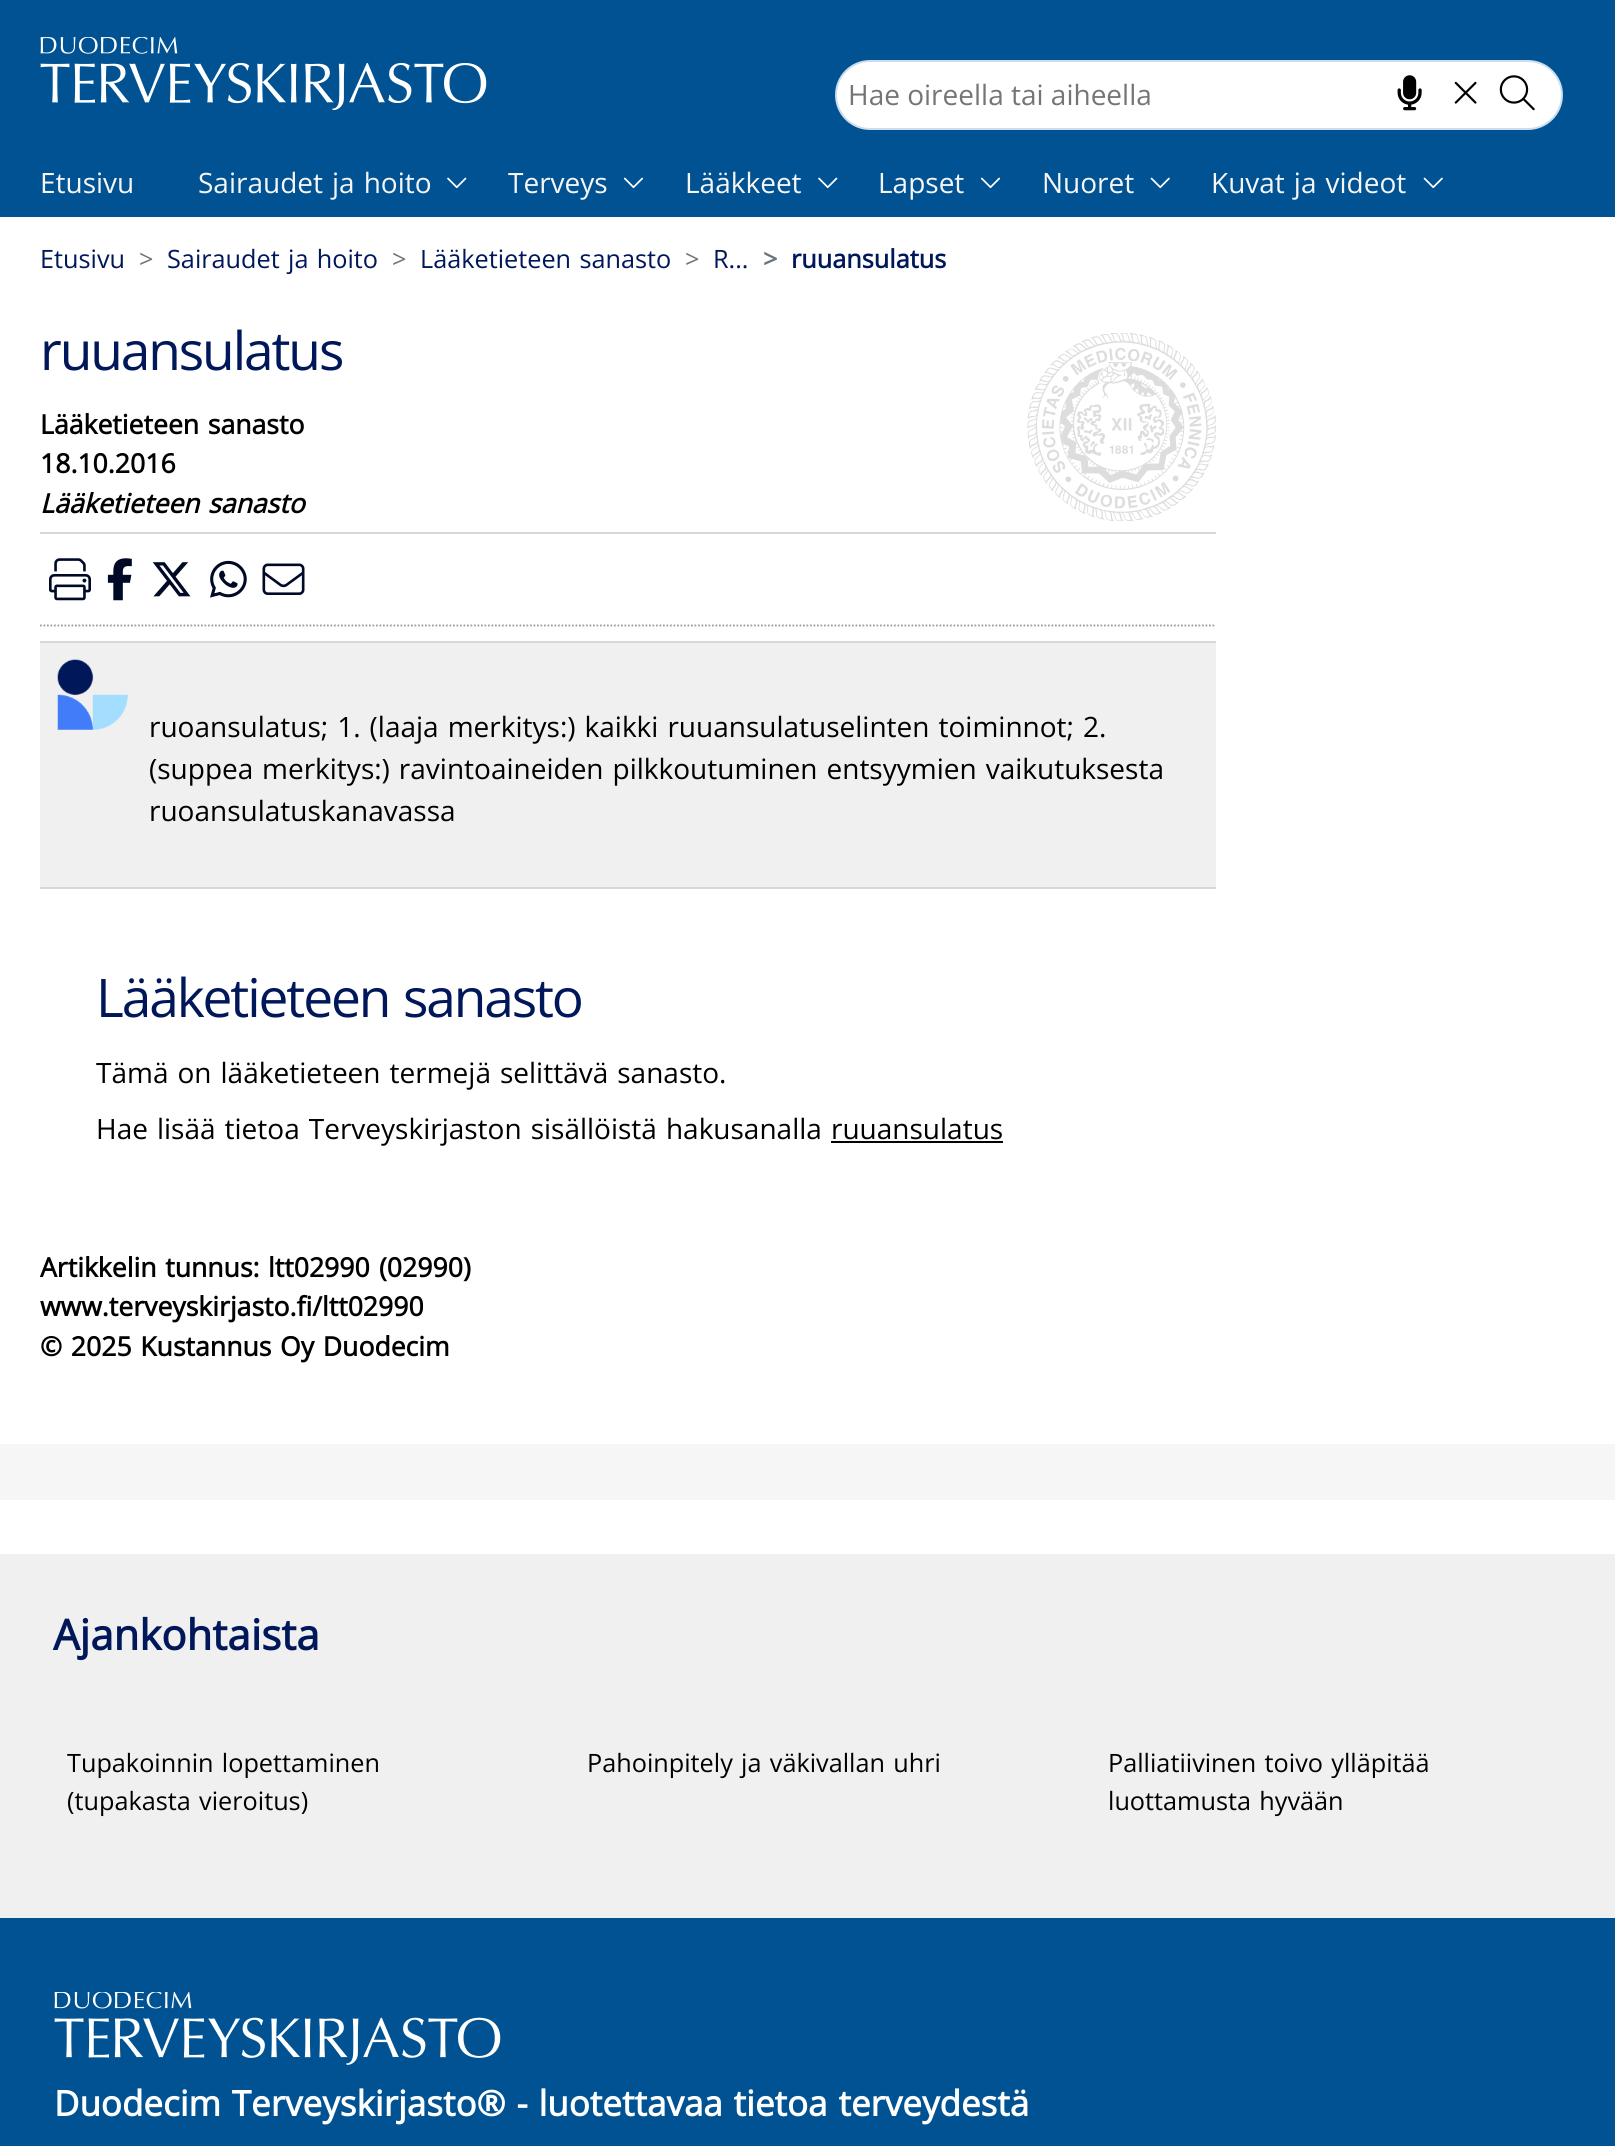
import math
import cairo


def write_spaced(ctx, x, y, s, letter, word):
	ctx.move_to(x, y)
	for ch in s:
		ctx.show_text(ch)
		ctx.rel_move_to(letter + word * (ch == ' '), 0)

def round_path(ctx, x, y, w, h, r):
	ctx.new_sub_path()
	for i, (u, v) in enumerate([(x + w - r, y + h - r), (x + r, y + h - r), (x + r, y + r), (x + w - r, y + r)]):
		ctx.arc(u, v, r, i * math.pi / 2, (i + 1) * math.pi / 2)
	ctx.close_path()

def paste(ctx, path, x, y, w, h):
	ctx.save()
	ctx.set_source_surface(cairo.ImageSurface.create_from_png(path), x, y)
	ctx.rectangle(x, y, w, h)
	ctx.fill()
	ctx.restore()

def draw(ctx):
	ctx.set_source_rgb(1, 1, 1)
	ctx.paint()
	ctx.set_source_rgb(0, 0.322, 0.576)
	ctx.rectangle(0, 0, 1615, 217)
	ctx.fill()
	paste(ctx, 'media/1.png', 40, 37, 447, 73)
	ctx.set_source_rgb(1, 1, 1)
	round_path(ctx, 836, 61, 726, 68, 34)
	ctx.fill_preserve()
	ctx.set_source_rgb(0.8, 0.867, 0.933)
	ctx.stroke()
	ctx.select_font_face('Open Sans')
	ctx.set_font_size(28)
	ctx.set_source_rgb(0.459, 0.459, 0.459)
	ctx.move_to(848, 105)
	ctx.show_text('Hae oireella tai aiheella')
	paste(ctx, 'media/2.png', 1397, 75, 25, 36)
	paste(ctx, 'media/3.png', 1454, 81, 23, 23)
	paste(ctx, 'media/4.png', 1499, 75, 36, 36)
	ctx.set_source_rgb(0.961, 0.961, 0.961)
	ctx.move_to(40, 193)
	ctx.show_text('Etusivu')
	write_spaced(ctx, 198, 193, 'Sairaudet ja hoito', 0, 1.75)
	paste(ctx, 'media/5.png', 447, 177, 20, 12)
	ctx.move_to(508, 193)
	ctx.show_text('Terveys')
	paste(ctx, 'media/6.png', 623, 177, 21, 12)
	ctx.move_to(685, 193)
	ctx.show_text('Lääkkeet')
	paste(ctx, 'media/5.png', 818, 177, 20, 12)
	ctx.move_to(878, 193)
	ctx.show_text('Lapset')
	paste(ctx, 'media/6.png', 980, 177, 21, 12)
	ctx.move_to(1042, 193)
	ctx.show_text('Nuoret')
	paste(ctx, 'media/7.png', 1150, 177, 20, 12)
	write_spaced(ctx, 1211, 193, 'Kuvat ja videot', 0, 1.75)
	paste(ctx, 'media/7.png', 1423, 177, 20, 12)
	ctx.set_font_size(25.25)
	ctx.set_source_rgb(0, 0.09, 0.353)
	ctx.move_to(40, 268)
	ctx.show_text('Etusivu')
	ctx.set_source_rgb(0.424, 0.459, 0.49)
	ctx.move_to(139, 268)
	ctx.show_text('>')
	ctx.set_source_rgb(0, 0.09, 0.353)
	write_spaced(ctx, 167, 268, 'Sairaudet ja hoito', 0, 1.75)
	ctx.set_source_rgb(0.424, 0.459, 0.49)
	ctx.move_to(392, 268)
	ctx.show_text('>')
	ctx.set_source_rgb(0, 0.09, 0.353)
	write_spaced(ctx, 420, 268, 'Lääketieteen sanasto', 0, 1.75)
	ctx.set_source_rgb(0.424, 0.459, 0.49)
	ctx.move_to(685, 268)
	ctx.show_text('>')
	ctx.set_source_rgb(0, 0.09, 0.353)
	ctx.move_to(713, 268)
	ctx.show_text('R...')
	ctx.select_font_face('Open Sans', cairo.FONT_SLANT_NORMAL, cairo.FONT_WEIGHT_BOLD)
	ctx.set_source_rgb(0.424, 0.459, 0.49)
	ctx.move_to(763, 268)
	ctx.show_text('>')
	ctx.set_source_rgb(0, 0.09, 0.353)
	ctx.move_to(791, 268)
	ctx.show_text('ruuansulatus')
	paste(ctx, 'media/8.png', 1027, 333, 189, 189)
	ctx.set_source_rgb(0.843, 0.843, 0.843)
	ctx.rectangle(40, 532, 1176, 2)
	ctx.fill()
	ctx.select_font_face('Open Sans')
	ctx.set_font_size(53.25)
	ctx.set_source_rgb(0, 0.09, 0.353)
	write_spaced(ctx, 40, 370, 'ruuansulatus', -2.1, 0)
	ctx.select_font_face('Open Sans', cairo.FONT_SLANT_NORMAL, cairo.FONT_WEIGHT_BOLD)
	ctx.set_font_size(26.6)
	ctx.set_source_rgb(0, 0, 0)
	write_spaced(ctx, 40, 434, 'Lääketieteen sanasto', 0, 1.75)
	ctx.move_to(40, 473)
	ctx.show_text('18.10.2016')
	ctx.select_font_face('Open Sans', cairo.FONT_SLANT_ITALIC, cairo.FONT_WEIGHT_BOLD)
	write_spaced(ctx, 40, 513, 'Lääketieteen sanasto', 0, 1.75)
	paste(ctx, 'media/9.png', 49, 558, 42, 43)
	paste(ctx, 'media/10.png', 107, 558, 25, 43)
	paste(ctx, 'media/11.png', 152, 562, 39, 35)
	paste(ctx, 'media/12.png', 210, 560, 37, 38)
	paste(ctx, 'media/13.png', 262, 563, 43, 32)
	ctx.new_path()
	ctx.move_to(40, 625.5)
	ctx.line_to(1216, 625.5)
	ctx.set_source_rgb(0.6, 0.6, 0.6)
	ctx.set_line_width(1.8)
	ctx.set_dash([1.75, 1.75])
	ctx.stroke()
	ctx.set_source_rgb(0.941, 0.941, 0.941)
	ctx.rectangle(40, 643, 1176, 244)
	ctx.fill()
	paste(ctx, 'media/14.png', 57, 659, 71, 71)
	ctx.set_source_rgb(0.843, 0.843, 0.843)
	ctx.rectangle(40, 641, 1176, 2)
	ctx.fill()
	ctx.rectangle(40, 887, 1176, 2)
	ctx.fill()
	ctx.select_font_face('Open Sans')
	ctx.set_font_size(28)
	ctx.set_source_rgb(0, 0, 0)
	write_spaced(ctx, 149, 737, 'ruoansulatus; 1. (laaja merkitys:) kaikki ruuansulatuselinten toiminnot; 2.', 0, 1.75)
	ctx.move_to(149, 779)
	ctx.show_text('(suppea')
	write_spaced(ctx, 262, 779, 'merkitys:) ravintoaineiden pilkkoutuminen entsyymien vaikutuksesta', 0, 1.75)
	ctx.move_to(149, 821)
	ctx.show_text('ruoansulatuskanavassa')
	ctx.set_font_size(53.25)
	ctx.set_source_rgb(0, 0.09, 0.353)
	write_spaced(ctx, 96, 1017, 'Lääketieteen sanasto', -2.1, 1.75)
	ctx.set_font_size(28)
	ctx.set_source_rgb(0, 0, 0)
	write_spaced(ctx, 96, 1083, 'Tämä on lääketieteen termejä selittävä sanasto.', 0, 1.75)
	write_spaced(ctx, 96, 1139, 'Hae lisää tietoa Terveyskirjaston sisällöistä hakusanalla', 0, 1.75)
	ctx.move_to(831, 1139)
	ctx.show_text('ruuansulatus')
	ctx.rectangle(831, 1141, 172, 2)
	ctx.fill()
	ctx.select_font_face('Open Sans', cairo.FONT_SLANT_NORMAL, cairo.FONT_WEIGHT_BOLD)
	ctx.set_font_size(26.6)
	write_spaced(ctx, 40, 1277, 'Artikkelin tunnus:', 0, 1.75)
	for x, y, s in [
		(268, 1277, 'ltt02990'),
		(379, 1277, '(02990)'),
		(40, 1316, 'www.terveyskirjasto.fi/ltt02990'),
	]:
		ctx.move_to(x, y)
		ctx.show_text(s)
	write_spaced(ctx, 40, 1356, '© 2025 Kustannus Oy Duodecim', 0, 1.75)
	ctx.set_source_rgb(0.961, 0.961, 0.961)
	ctx.rectangle(0, 1444, 1615, 56)
	ctx.fill()
	ctx.set_source_rgb(0.941, 0.941, 0.941)
	ctx.rectangle(0, 1554, 1615, 364)
	ctx.fill()
	ctx.set_font_size(42)
	ctx.set_source_rgb(0, 0.09, 0.353)
	ctx.move_to(53, 1650)
	ctx.show_text('Ajankohtaista')
	ctx.select_font_face('Open Sans')
	ctx.set_font_size(25.25)
	ctx.set_source_rgb(0, 0, 0)
	for x, y, s in [
		(67, 1772, 'Tupakoinnin lopettaminen'),
		(67, 1810, '(tupakasta vieroitus)'),
		(587, 1772, 'Pahoinpitely ja väkivallan uhri'),
		(1108, 1772, 'Palliatiivinen toivo ylläpitää'),
		(1108, 1810, 'luottamusta hyvään'),
	]:
		write_spaced(ctx, x, y, s, 0, 1.75)
	ctx.set_source_rgb(0, 0.322, 0.576)
	ctx.rectangle(0, 1918, 1615, 228)
	ctx.fill()
	paste(ctx, 'media/15.png', 54, 1992, 447, 73)
	ctx.select_font_face('Open Sans', cairo.FONT_SLANT_NORMAL, cairo.FONT_WEIGHT_BOLD)
	ctx.set_font_size(35)
	ctx.set_source_rgb(1, 1, 1)
	write_spaced(ctx, 54, 2116, 'Duodecim Terveyskirjasto® - luotettavaa tietoa terveydestä', 0, 1.75)


surface = cairo.ImageSurface(cairo.FORMAT_RGB24, 1615, 2146)
ctx = cairo.Context(surface)
options = cairo.FontOptions()
options.set_hint_metrics(cairo.HINT_METRICS_OFF)
options.set_hint_style(cairo.HINT_STYLE_NONE)
ctx.set_font_options(options)
ctx.set_miter_limit(4)
draw(ctx)
surface.write_to_png('image.png')
